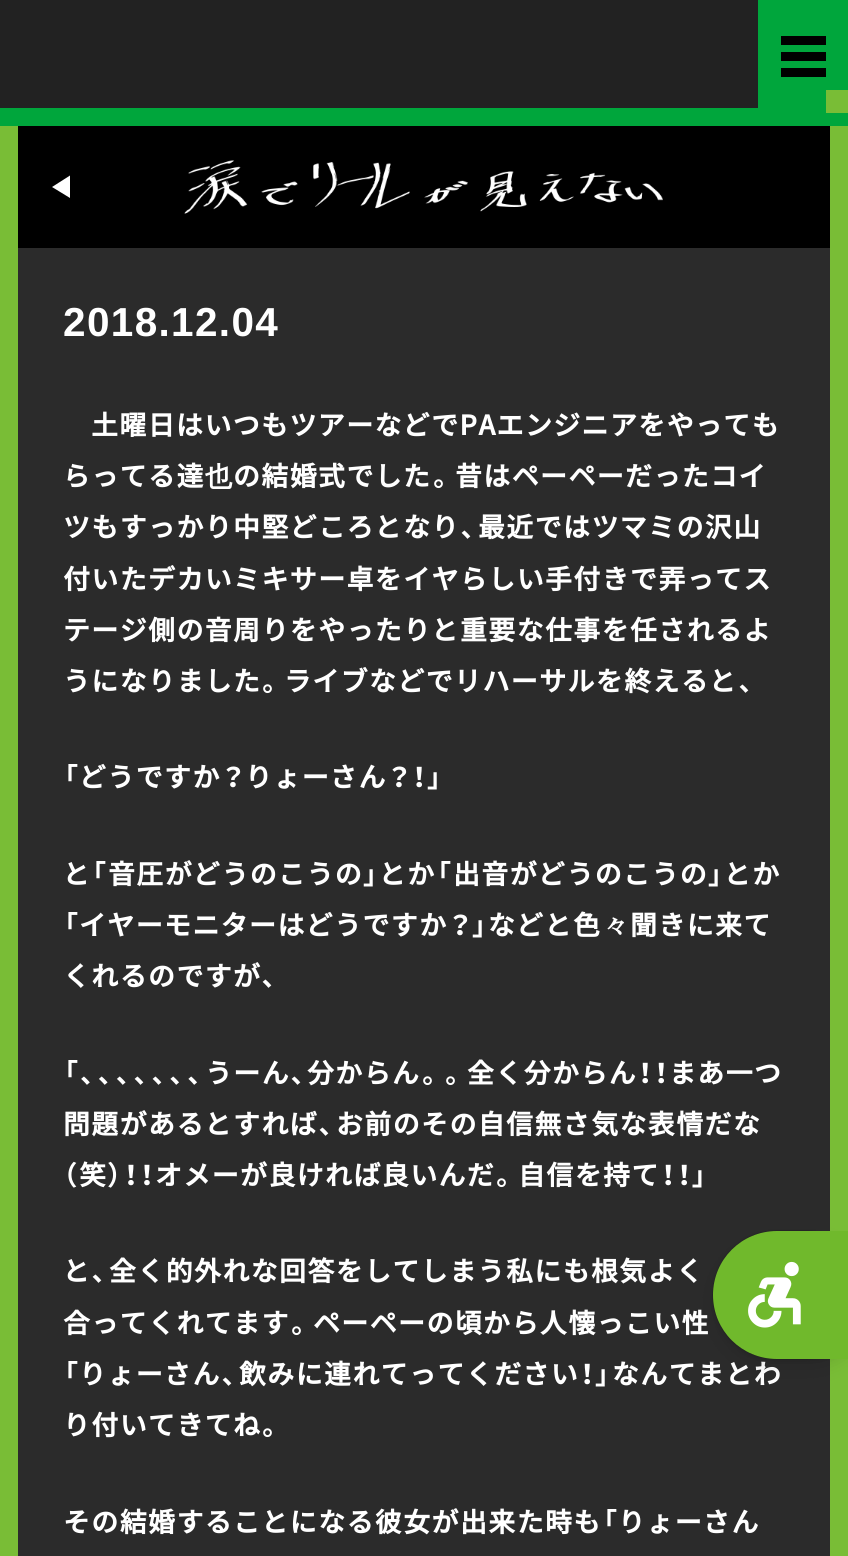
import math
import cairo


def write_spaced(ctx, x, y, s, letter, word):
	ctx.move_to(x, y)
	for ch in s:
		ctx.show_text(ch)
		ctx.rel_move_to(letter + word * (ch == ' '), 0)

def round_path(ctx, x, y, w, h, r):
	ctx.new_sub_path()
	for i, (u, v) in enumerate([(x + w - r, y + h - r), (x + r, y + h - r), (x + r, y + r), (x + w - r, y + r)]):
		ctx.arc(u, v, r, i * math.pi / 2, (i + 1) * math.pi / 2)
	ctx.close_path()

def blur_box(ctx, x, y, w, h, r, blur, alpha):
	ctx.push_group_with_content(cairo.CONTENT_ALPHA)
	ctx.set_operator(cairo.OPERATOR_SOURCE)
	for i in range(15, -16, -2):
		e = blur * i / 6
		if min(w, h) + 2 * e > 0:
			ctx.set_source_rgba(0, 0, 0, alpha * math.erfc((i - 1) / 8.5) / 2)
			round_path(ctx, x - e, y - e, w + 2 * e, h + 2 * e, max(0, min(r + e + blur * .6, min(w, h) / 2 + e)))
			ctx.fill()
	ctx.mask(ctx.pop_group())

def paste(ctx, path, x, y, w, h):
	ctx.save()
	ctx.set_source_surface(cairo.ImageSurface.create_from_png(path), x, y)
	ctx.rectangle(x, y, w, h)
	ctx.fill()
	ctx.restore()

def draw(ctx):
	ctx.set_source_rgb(0.475, 0.741, 0.212)
	ctx.paint()
	ctx.set_source_rgb(0.133, 0.133, 0.133)
	ctx.rectangle(0, 0, 758, 108)
	ctx.fill()
	ctx.set_source_rgb(0, 0.651, 0.235)
	ctx.rectangle(758, 0, 90, 108)
	ctx.fill()
	ctx.set_source_rgb(0, 0, 0)
	ctx.rectangle(781, 36, 45, 9)
	ctx.rectangle(781, 52, 45, 9)
	ctx.rectangle(781, 68, 45, 9)
	ctx.fill()
	ctx.set_source_rgb(0, 0.651, 0.235)
	ctx.rectangle(0, 108, 848, 18)
	ctx.fill()
	ctx.set_source_rgb(0.475, 0.741, 0.212)
	ctx.rectangle(826, 90, 22, 23)
	ctx.fill()
	ctx.set_source_rgb(0, 0, 0)
	ctx.rectangle(18, 126, 812, 122)
	ctx.fill()
	ctx.set_source_rgb(1, 1, 1)
	ctx.new_path()
	ctx.move_to(70, 175.5)
	ctx.line_to(70, 198)
	ctx.line_to(52, 187)
	ctx.close_path()
	ctx.fill()
	paste(ctx, 'media/1.png', 184, 160, 479, 54)
	ctx.set_source_rgb(0.169, 0.169, 0.169)
	ctx.rectangle(18, 248, 812, 1308)
	ctx.fill()
	ctx.select_font_face('Liberation Sans', cairo.FONT_SLANT_NORMAL, cairo.FONT_WEIGHT_BOLD)
	ctx.set_font_size(40.5)
	ctx.set_source_rgb(1, 1, 1)
	write_spaced(ctx, 63, 336, '2018.12.04', 1.35, 0)
	ctx.select_font_face('Noto Sans CJK JP', cairo.FONT_SLANT_NORMAL, cairo.FONT_WEIGHT_BOLD)
	ctx.set_font_size(27)
	write_spaced(ctx, 91, 435, '土曜日はいつもツアーなどでPAエンジニアをやっても', 1.35, 0)
	write_spaced(ctx, 63, 486, 'らってる達', 1.35, 0)
	ctx.select_font_face('WenQuanYi Zen Hei', cairo.FONT_SLANT_NORMAL, cairo.FONT_WEIGHT_BOLD)
	write_spaced(ctx, 205, 486, '也', 1.35, 0)
	ctx.select_font_face('Noto Sans CJK JP', cairo.FONT_SLANT_NORMAL, cairo.FONT_WEIGHT_BOLD)
	write_spaced(ctx, 233, 486, 'の結婚式でした', 1.35, 0)
	ctx.select_font_face('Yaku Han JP', cairo.FONT_SLANT_NORMAL, cairo.FONT_WEIGHT_BOLD)
	write_spaced(ctx, 432, 486, '。', 1.35, 0)
	ctx.select_font_face('Noto Sans CJK JP', cairo.FONT_SLANT_NORMAL, cairo.FONT_WEIGHT_BOLD)
	write_spaced(ctx, 455, 486, '昔はペーペーだったコイ', 1.35, 0)
	write_spaced(ctx, 63, 537, 'ツもすっかり中堅どころとなり', 1.35, 0)
	ctx.select_font_face('Yaku Han JP', cairo.FONT_SLANT_NORMAL, cairo.FONT_WEIGHT_BOLD)
	write_spaced(ctx, 460, 537, '、', 1.35, 0)
	ctx.select_font_face('Noto Sans CJK JP', cairo.FONT_SLANT_NORMAL, cairo.FONT_WEIGHT_BOLD)
	for x, y, s in [
		(478, 537, '最近ではツマミの沢山'),
		(63, 589, '付いたデカいミキサー卓をイヤらしい手付きで弄ってス'),
		(63, 640, 'テージ側の音周りをやったりと重要な仕事を任されるよ'),
		(63, 691, 'うになりました'),
	]:
		write_spaced(ctx, x, y, s, 1.35, 0)
	ctx.select_font_face('Yaku Han JP', cairo.FONT_SLANT_NORMAL, cairo.FONT_WEIGHT_BOLD)
	write_spaced(ctx, 261, 691, '。', 1.35, 0)
	ctx.select_font_face('Noto Sans CJK JP', cairo.FONT_SLANT_NORMAL, cairo.FONT_WEIGHT_BOLD)
	write_spaced(ctx, 284, 691, 'ライブなどでリハーサルを終えると', 1.35, 0)
	ctx.select_font_face('Yaku Han JP', cairo.FONT_SLANT_NORMAL, cairo.FONT_WEIGHT_BOLD)
	write_spaced(ctx, 738, 691, '、', 1.35, 0)
	write_spaced(ctx, 63, 787, '「', 1.35, 0)
	ctx.select_font_face('Noto Sans CJK JP', cairo.FONT_SLANT_NORMAL, cairo.FONT_WEIGHT_BOLD)
	write_spaced(ctx, 79, 787, 'どうですか', 1.35, 0)
	ctx.select_font_face('Yaku Han JP', cairo.FONT_SLANT_NORMAL, cairo.FONT_WEIGHT_BOLD)
	write_spaced(ctx, 221, 787, '？', 1.35, 0)
	ctx.select_font_face('Noto Sans CJK JP', cairo.FONT_SLANT_NORMAL, cairo.FONT_WEIGHT_BOLD)
	write_spaced(ctx, 245, 787, 'りょーさん', 1.35, 0)
	ctx.select_font_face('Yaku Han JP', cairo.FONT_SLANT_NORMAL, cairo.FONT_WEIGHT_BOLD)
	write_spaced(ctx, 387, 787, '？！」', 1.35, 0)
	ctx.select_font_face('Noto Sans CJK JP', cairo.FONT_SLANT_NORMAL, cairo.FONT_WEIGHT_BOLD)
	write_spaced(ctx, 63, 884, 'と', 1.35, 0)
	ctx.select_font_face('Yaku Han JP', cairo.FONT_SLANT_NORMAL, cairo.FONT_WEIGHT_BOLD)
	write_spaced(ctx, 91, 884, '「', 1.35, 0)
	ctx.select_font_face('Noto Sans CJK JP', cairo.FONT_SLANT_NORMAL, cairo.FONT_WEIGHT_BOLD)
	write_spaced(ctx, 108, 884, '音圧がどうのこうの', 1.35, 0)
	ctx.select_font_face('Yaku Han JP', cairo.FONT_SLANT_NORMAL, cairo.FONT_WEIGHT_BOLD)
	write_spaced(ctx, 363, 884, '」', 1.35, 0)
	ctx.select_font_face('Noto Sans CJK JP', cairo.FONT_SLANT_NORMAL, cairo.FONT_WEIGHT_BOLD)
	write_spaced(ctx, 379, 884, 'とか', 1.35, 0)
	ctx.select_font_face('Yaku Han JP', cairo.FONT_SLANT_NORMAL, cairo.FONT_WEIGHT_BOLD)
	write_spaced(ctx, 436, 884, '「', 1.35, 0)
	ctx.select_font_face('Noto Sans CJK JP', cairo.FONT_SLANT_NORMAL, cairo.FONT_WEIGHT_BOLD)
	write_spaced(ctx, 453, 884, '出音がどうのこうの', 1.35, 0)
	ctx.select_font_face('Yaku Han JP', cairo.FONT_SLANT_NORMAL, cairo.FONT_WEIGHT_BOLD)
	write_spaced(ctx, 708, 884, '」', 1.35, 0)
	ctx.select_font_face('Noto Sans CJK JP', cairo.FONT_SLANT_NORMAL, cairo.FONT_WEIGHT_BOLD)
	write_spaced(ctx, 724, 884, 'とか', 1.35, 0)
	ctx.select_font_face('Yaku Han JP', cairo.FONT_SLANT_NORMAL, cairo.FONT_WEIGHT_BOLD)
	write_spaced(ctx, 63, 935, '「', 1.35, 0)
	ctx.select_font_face('Noto Sans CJK JP', cairo.FONT_SLANT_NORMAL, cairo.FONT_WEIGHT_BOLD)
	write_spaced(ctx, 79, 935, 'イヤーモニターはどうですか', 1.35, 0)
	ctx.select_font_face('Yaku Han JP', cairo.FONT_SLANT_NORMAL, cairo.FONT_WEIGHT_BOLD)
	write_spaced(ctx, 448, 935, '？」', 1.35, 0)
	ctx.select_font_face('Noto Sans CJK JP', cairo.FONT_SLANT_NORMAL, cairo.FONT_WEIGHT_BOLD)
	write_spaced(ctx, 488, 935, 'などと色', 1.35, 0)
	ctx.select_font_face('WenQuanYi Zen Hei', cairo.FONT_SLANT_NORMAL, cairo.FONT_WEIGHT_BOLD)
	write_spaced(ctx, 602, 935, '々', 1.35, 0)
	ctx.select_font_face('Noto Sans CJK JP', cairo.FONT_SLANT_NORMAL, cairo.FONT_WEIGHT_BOLD)
	write_spaced(ctx, 630, 935, '聞きに来て', 1.35, 0)
	write_spaced(ctx, 63, 986, 'くれるのですが', 1.35, 0)
	ctx.select_font_face('Yaku Han JP', cairo.FONT_SLANT_NORMAL, cairo.FONT_WEIGHT_BOLD)
	write_spaced(ctx, 261, 986, '、', 1.35, 0)
	write_spaced(ctx, 63, 1083, '「、、、、、、、', 1.35, 0)
	ctx.select_font_face('Noto Sans CJK JP', cairo.FONT_SLANT_NORMAL, cairo.FONT_WEIGHT_BOLD)
	write_spaced(ctx, 205, 1083, 'うーん', 1.35, 0)
	ctx.select_font_face('Yaku Han JP', cairo.FONT_SLANT_NORMAL, cairo.FONT_WEIGHT_BOLD)
	write_spaced(ctx, 290, 1083, '、', 1.35, 0)
	ctx.select_font_face('Noto Sans CJK JP', cairo.FONT_SLANT_NORMAL, cairo.FONT_WEIGHT_BOLD)
	write_spaced(ctx, 307, 1083, '分からん', 1.35, 0)
	ctx.select_font_face('Yaku Han JP', cairo.FONT_SLANT_NORMAL, cairo.FONT_WEIGHT_BOLD)
	write_spaced(ctx, 421, 1083, '。。', 1.35, 0)
	ctx.select_font_face('Noto Sans CJK JP', cairo.FONT_SLANT_NORMAL, cairo.FONT_WEIGHT_BOLD)
	write_spaced(ctx, 467, 1083, '全く分からん', 1.35, 0)
	ctx.select_font_face('Yaku Han JP', cairo.FONT_SLANT_NORMAL, cairo.FONT_WEIGHT_BOLD)
	write_spaced(ctx, 637, 1083, '！！', 1.35, 0)
	ctx.select_font_face('Noto Sans CJK JP', cairo.FONT_SLANT_NORMAL, cairo.FONT_WEIGHT_BOLD)
	write_spaced(ctx, 669, 1083, 'まあ一つ', 1.35, 0)
	write_spaced(ctx, 63, 1134, '問題があるとすれば', 1.35, 0)
	ctx.select_font_face('Yaku Han JP', cairo.FONT_SLANT_NORMAL, cairo.FONT_WEIGHT_BOLD)
	write_spaced(ctx, 318, 1134, '、', 1.35, 0)
	ctx.select_font_face('Noto Sans CJK JP', cairo.FONT_SLANT_NORMAL, cairo.FONT_WEIGHT_BOLD)
	write_spaced(ctx, 336, 1134, 'お前のその自信無さ気な表情だな', 1.35, 0)
	ctx.select_font_face('Yaku Han JP', cairo.FONT_SLANT_NORMAL, cairo.FONT_WEIGHT_BOLD)
	write_spaced(ctx, 63, 1185, '（', 1.35, 0)
	ctx.select_font_face('Noto Sans CJK JP', cairo.FONT_SLANT_NORMAL, cairo.FONT_WEIGHT_BOLD)
	write_spaced(ctx, 79, 1185, '笑', 1.35, 0)
	ctx.select_font_face('Yaku Han JP', cairo.FONT_SLANT_NORMAL, cairo.FONT_WEIGHT_BOLD)
	write_spaced(ctx, 107, 1185, '）！！', 1.35, 0)
	ctx.select_font_face('Noto Sans CJK JP', cairo.FONT_SLANT_NORMAL, cairo.FONT_WEIGHT_BOLD)
	write_spaced(ctx, 155, 1185, 'オメーが良ければ良いんだ', 1.35, 0)
	ctx.select_font_face('Yaku Han JP', cairo.FONT_SLANT_NORMAL, cairo.FONT_WEIGHT_BOLD)
	write_spaced(ctx, 495, 1185, '。', 1.35, 0)
	ctx.select_font_face('Noto Sans CJK JP', cairo.FONT_SLANT_NORMAL, cairo.FONT_WEIGHT_BOLD)
	write_spaced(ctx, 518, 1185, '自信を持て', 1.35, 0)
	ctx.select_font_face('Yaku Han JP', cairo.FONT_SLANT_NORMAL, cairo.FONT_WEIGHT_BOLD)
	write_spaced(ctx, 660, 1185, '！！」', 1.35, 0)
	ctx.select_font_face('Noto Sans CJK JP', cairo.FONT_SLANT_NORMAL, cairo.FONT_WEIGHT_BOLD)
	write_spaced(ctx, 63, 1281, 'と', 1.35, 0)
	ctx.select_font_face('Yaku Han JP', cairo.FONT_SLANT_NORMAL, cairo.FONT_WEIGHT_BOLD)
	write_spaced(ctx, 91, 1281, '、', 1.35, 0)
	ctx.select_font_face('Noto Sans CJK JP', cairo.FONT_SLANT_NORMAL, cairo.FONT_WEIGHT_BOLD)
	write_spaced(ctx, 109, 1281, '全く的外れな回答をしてしまう私にも根気よく', 1.35, 0)
	write_spaced(ctx, 63, 1333, '合ってくれてます', 1.35, 0)
	ctx.select_font_face('Yaku Han JP', cairo.FONT_SLANT_NORMAL, cairo.FONT_WEIGHT_BOLD)
	write_spaced(ctx, 290, 1333, '。', 1.35, 0)
	ctx.select_font_face('Noto Sans CJK JP', cairo.FONT_SLANT_NORMAL, cairo.FONT_WEIGHT_BOLD)
	write_spaced(ctx, 313, 1333, 'ペーペーの頃から人懐っこい性', 1.35, 0)
	ctx.select_font_face('Yaku Han JP', cairo.FONT_SLANT_NORMAL, cairo.FONT_WEIGHT_BOLD)
	write_spaced(ctx, 63, 1384, '「', 1.35, 0)
	ctx.select_font_face('Noto Sans CJK JP', cairo.FONT_SLANT_NORMAL, cairo.FONT_WEIGHT_BOLD)
	write_spaced(ctx, 79, 1384, 'りょーさん', 1.35, 0)
	ctx.select_font_face('Yaku Han JP', cairo.FONT_SLANT_NORMAL, cairo.FONT_WEIGHT_BOLD)
	write_spaced(ctx, 221, 1384, '、', 1.35, 0)
	ctx.select_font_face('Noto Sans CJK JP', cairo.FONT_SLANT_NORMAL, cairo.FONT_WEIGHT_BOLD)
	write_spaced(ctx, 239, 1384, '飲みに連れてってください', 1.35, 0)
	ctx.select_font_face('Yaku Han JP', cairo.FONT_SLANT_NORMAL, cairo.FONT_WEIGHT_BOLD)
	write_spaced(ctx, 579, 1384, '！」', 1.35, 0)
	ctx.select_font_face('Noto Sans CJK JP', cairo.FONT_SLANT_NORMAL, cairo.FONT_WEIGHT_BOLD)
	write_spaced(ctx, 612, 1384, 'なんてまとわ', 1.35, 0)
	write_spaced(ctx, 63, 1435, 'り付いてきてね', 1.35, 0)
	ctx.select_font_face('Yaku Han JP', cairo.FONT_SLANT_NORMAL, cairo.FONT_WEIGHT_BOLD)
	write_spaced(ctx, 261, 1435, '。', 1.35, 0)
	ctx.select_font_face('Noto Sans CJK JP', cairo.FONT_SLANT_NORMAL, cairo.FONT_WEIGHT_BOLD)
	write_spaced(ctx, 63, 1532, 'その結婚することになる彼女が出来た時も', 1.35, 0)
	ctx.select_font_face('Yaku Han JP', cairo.FONT_SLANT_NORMAL, cairo.FONT_WEIGHT_BOLD)
	write_spaced(ctx, 602, 1532, '「', 1.35, 0)
	ctx.select_font_face('Noto Sans CJK JP', cairo.FONT_SLANT_NORMAL, cairo.FONT_WEIGHT_BOLD)
	write_spaced(ctx, 618, 1532, 'りょーさん', 1.35, 0)
	ctx.set_source_rgb(0, 0, 0)
	blur_box(ctx, 713, 1240, 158, 128, 64, 9, 0.09)
	blur_box(ctx, 713, 1233, 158, 128, 64, 3.5, 0.09)
	blur_box(ctx, 713, 1231, 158, 128, 64, 0.5, 0.4)
	ctx.set_source_rgb(0.439, 0.725, 0.173)
	ctx.new_path()
	ctx.move_to(777, 1231)
	ctx.line_to(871, 1231)
	ctx.line_to(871, 1359)
	ctx.line_to(777, 1359)
	ctx.curve_to(741.5, 1359, 713, 1330.5, 713, 1295)
	ctx.curve_to(713, 1259.5, 741.5, 1231, 777, 1231)
	ctx.close_path()
	ctx.fill()
	paste(ctx, 'media/2.png', 748, 1261, 53, 67)


surface = cairo.ImageSurface(cairo.FORMAT_RGB24, 848, 1556)
ctx = cairo.Context(surface)
options = cairo.FontOptions()
options.set_hint_metrics(cairo.HINT_METRICS_OFF)
options.set_hint_style(cairo.HINT_STYLE_NONE)
ctx.set_font_options(options)
ctx.set_miter_limit(4)
draw(ctx)
surface.write_to_png('image.png')
